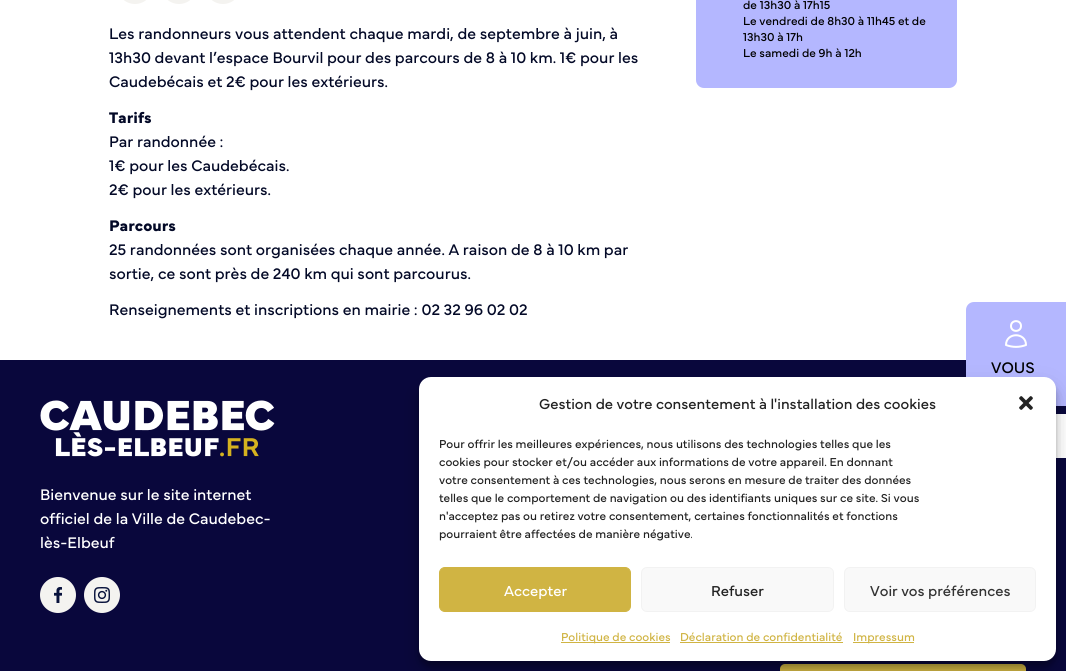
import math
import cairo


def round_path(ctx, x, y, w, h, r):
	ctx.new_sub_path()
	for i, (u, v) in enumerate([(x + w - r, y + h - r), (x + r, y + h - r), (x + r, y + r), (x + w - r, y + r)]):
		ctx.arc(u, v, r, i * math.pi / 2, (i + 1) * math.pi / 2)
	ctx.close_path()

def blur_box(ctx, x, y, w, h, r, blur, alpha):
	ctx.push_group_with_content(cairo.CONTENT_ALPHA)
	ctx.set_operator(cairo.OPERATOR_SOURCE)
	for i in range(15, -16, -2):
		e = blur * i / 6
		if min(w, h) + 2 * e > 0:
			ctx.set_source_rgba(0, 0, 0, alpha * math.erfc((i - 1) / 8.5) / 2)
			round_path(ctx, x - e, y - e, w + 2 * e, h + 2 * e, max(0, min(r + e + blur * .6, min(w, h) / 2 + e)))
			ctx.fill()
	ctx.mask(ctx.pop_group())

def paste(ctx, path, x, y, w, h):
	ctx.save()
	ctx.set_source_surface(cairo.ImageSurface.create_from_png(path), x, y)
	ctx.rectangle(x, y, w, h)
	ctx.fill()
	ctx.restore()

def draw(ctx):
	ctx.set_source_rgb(1, 1, 1)
	ctx.paint()
	ctx.set_source_rgb(0.957, 0.953, 0.941)
	round_path(ctx, 117, -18, 36, 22, 18)
	ctx.fill()
	round_path(ctx, 161, -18, 36, 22, 18)
	ctx.fill()
	round_path(ctx, 205, -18, 36, 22, 18)
	ctx.fill()
	ctx.select_font_face('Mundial')
	ctx.set_font_size(16)
	ctx.set_source_rgb(0.012, 0.039, 0.153)
	for x, y, s in [
		(109, 39, 'Les randonneurs vous attendent chaque mardi, de septembre à juin, à'),
		(109, 63, '13h30 devant l’espace Bourvil pour des parcours de 8 à 10 km. 1€ pour les'),
		(109, 87, 'Caudebécais et 2€ pour les extérieurs.'),
	]:
		ctx.move_to(x, y)
		ctx.show_text(s)
	ctx.select_font_face('Mundial', cairo.FONT_SLANT_NORMAL, cairo.FONT_WEIGHT_BOLD)
	ctx.move_to(109, 123)
	ctx.show_text('Tarifs')
	ctx.select_font_face('Mundial')
	for x, y, s in [
		(109, 147, 'Par randonnée :'),
		(109, 171, '1€ pour les Caudebécais.'),
		(109, 195, '2€ pour les extérieurs.'),
	]:
		ctx.move_to(x, y)
		ctx.show_text(s)
	ctx.select_font_face('Mundial', cairo.FONT_SLANT_NORMAL, cairo.FONT_WEIGHT_BOLD)
	ctx.move_to(109, 231)
	ctx.show_text('Parcours')
	ctx.select_font_face('Mundial')
	for x, y, s in [
		(109, 255, '25 randonnées sont organisées chaque année. A raison de 8 à 10 km par'),
		(109, 279, 'sortie, ce sont près de 240 km qui sont parcourus.'),
		(109, 315, 'Renseignements et inscriptions en mairie : 02 32 96 02 02'),
	]:
		ctx.move_to(x, y)
		ctx.show_text(s)
	ctx.set_source_rgb(0.706, 0.718, 1)
	round_path(ctx, 696, -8, 261, 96, 8)
	ctx.fill()
	ctx.set_font_size(12)
	ctx.set_source_rgb(0, 0, 0)
	for x, y, s in [
		(743, 9, 'de 13h30 à 17h15'),
		(743, 25, 'Le vendredi de 8h30 à 11h45 et de'),
		(743, 41, '13h30 à 17h'),
		(743, 57, 'Le samedi de 9h à 12h'),
	]:
		ctx.move_to(x, y)
		ctx.show_text(s)
	ctx.set_source_rgb(0.039, 0.031, 0.235)
	ctx.rectangle(0, 360, 1066, 311)
	ctx.fill()
	ctx.set_source_rgb(0.706, 0.718, 1)
	ctx.new_path()
	ctx.move_to(974, 302)
	ctx.line_to(1066, 302)
	ctx.line_to(1066, 406)
	ctx.line_to(974, 406)
	ctx.curve_to(969.5, 406, 966, 402.5, 966, 398)
	ctx.line_to(966, 310)
	ctx.curve_to(966, 305.5, 969.5, 302, 974, 302)
	ctx.close_path()
	ctx.fill()
	ctx.new_path()
	ctx.move_to(1021, 326)
	ctx.curve_to(1021, 332.5, 1011, 332.5, 1011, 326)
	ctx.curve_to(1011, 319.5, 1021, 319.5, 1021, 326)
	ctx.close_path()
	ctx.move_to(1006, 345)
	ctx.curve_to(1006, 332, 1026, 332, 1026, 345)
	ctx.curve_to(1019.5, 347.5, 1012.5, 347.5, 1006, 345)
	ctx.close_path()
	ctx.set_source_rgb(1, 1, 1)
	ctx.set_line_cap(cairo.LINE_CAP_ROUND)
	ctx.set_line_join(cairo.LINE_JOIN_ROUND)
	ctx.stroke()
	ctx.set_font_size(16)
	ctx.set_source_rgb(0, 0, 0)
	ctx.move_to(991, 373)
	ctx.show_text('VOUS')
	ctx.set_source_rgb(1, 1, 1)
	ctx.rectangle(1056, 414, 10, 44)
	ctx.fill()
	paste(ctx, 'media/1.png', 40, 400, 235, 57)
	for x, y, s in [
		(40, 500, 'Bienvenue sur le site internet'),
		(40, 524, 'officiel de la Ville de Caudebec-'),
		(40, 548, 'lès-Elbeuf'),
	]:
		ctx.move_to(x, y)
		ctx.show_text(s)
	ctx.set_source_rgb(0.957, 0.953, 0.941)
	ctx.new_path()
	ctx.arc(58, 595, 18, 0, 2 * math.pi)
	ctx.fill()
	paste(ctx, 'media/2.png', 54, 587, 8, 16)
	ctx.arc(102, 595, 18, 0, 2 * math.pi)
	ctx.fill()
	paste(ctx, 'media/3.png', 94, 587, 16, 16)
	ctx.set_source_rgb(0.816, 0.706, 0.263)
	round_path(ctx, 780, 664, 246, 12, 5)
	ctx.fill()
	ctx.set_source_rgb(0, 0, 0)
	blur_box(ctx, 419, 383, 637, 284, 12, 3, 0.23)
	blur_box(ctx, 419, 387, 637, 284, 12, 10, 0.19)
	ctx.set_source_rgb(1, 1, 1)
	round_path(ctx, 419, 377, 637, 284, 12)
	ctx.fill()
	ctx.set_font_size(15)
	ctx.set_source_rgb(0.133, 0.133, 0.133)
	ctx.move_to(539, 409)
	ctx.show_text('Gestion de votre consentement à l\'installation des cookies')
	paste(ctx, 'media/4.png', 1019, 396, 14, 14)
	ctx.set_font_size(12)
	for x, y, s in [
		(439, 448, 'Pour offrir les meilleures expériences, nous utilisons des technologies telles que les'),
		(439, 466, 'cookies pour stocker et/ou accéder aux informations de votre appareil. En donnant'),
		(439, 484, 'votre consentement à ces technologies, nous serons en mesure de traiter des données'),
		(439, 502, 'telles que le comportement de navigation ou des identifiants uniques sur ce site. Si vous'),
		(439, 520, 'n\'acceptez pas ou retirez votre consentement, certaines fonctionnalités et fonctions'),
		(439, 538, 'pourraient être affectées de manière négative.'),
	]:
		ctx.move_to(x, y)
		ctx.show_text(s)
	ctx.set_source_rgb(0.816, 0.706, 0.263)
	round_path(ctx, 439.5, 567.5, 191, 44, 5.5)
	ctx.fill_preserve()
	ctx.set_line_width(1)
	ctx.set_line_cap(cairo.LINE_CAP_BUTT)
	ctx.set_line_join(cairo.LINE_JOIN_MITER)
	ctx.stroke()
	ctx.set_font_size(15)
	ctx.set_source_rgb(1, 1, 1)
	ctx.move_to(504, 596)
	ctx.show_text('Accepter')
	ctx.set_source_rgb(0.976, 0.976, 0.976)
	round_path(ctx, 641.5, 567.5, 192, 44, 5.5)
	ctx.fill_preserve()
	ctx.set_source_rgb(0.949, 0.949, 0.949)
	ctx.stroke()
	ctx.set_source_rgb(0.133, 0.133, 0.133)
	ctx.move_to(711, 596)
	ctx.show_text('Refuser')
	ctx.set_source_rgb(0.976, 0.976, 0.976)
	round_path(ctx, 844.5, 567.5, 191, 44, 5.5)
	ctx.fill_preserve()
	ctx.set_source_rgb(0.949, 0.949, 0.949)
	ctx.stroke()
	ctx.set_source_rgb(0.2, 0.2, 0.2)
	ctx.move_to(870, 596)
	ctx.show_text('Voir vos préférences')
	ctx.set_source_rgb(0.816, 0.706, 0.263)
	ctx.rectangle(561, 642, 109, 1)
	ctx.fill()
	ctx.set_font_size(12)
	ctx.move_to(561, 641)
	ctx.show_text('Politique de cookies')
	ctx.move_to(680, 641)
	ctx.show_text('Déclaration de confidentialité')
	ctx.rectangle(680, 642, 163, 1)
	ctx.fill()
	ctx.rectangle(853, 642, 61, 1)
	ctx.fill()
	ctx.move_to(853, 641)
	ctx.show_text('Impressum')


surface = cairo.ImageSurface(cairo.FORMAT_RGB24, 1066, 671)
ctx = cairo.Context(surface)
options = cairo.FontOptions()
options.set_hint_metrics(cairo.HINT_METRICS_OFF)
options.set_hint_style(cairo.HINT_STYLE_NONE)
ctx.set_font_options(options)
ctx.set_miter_limit(4)
draw(ctx)
surface.write_to_png('image.png')
